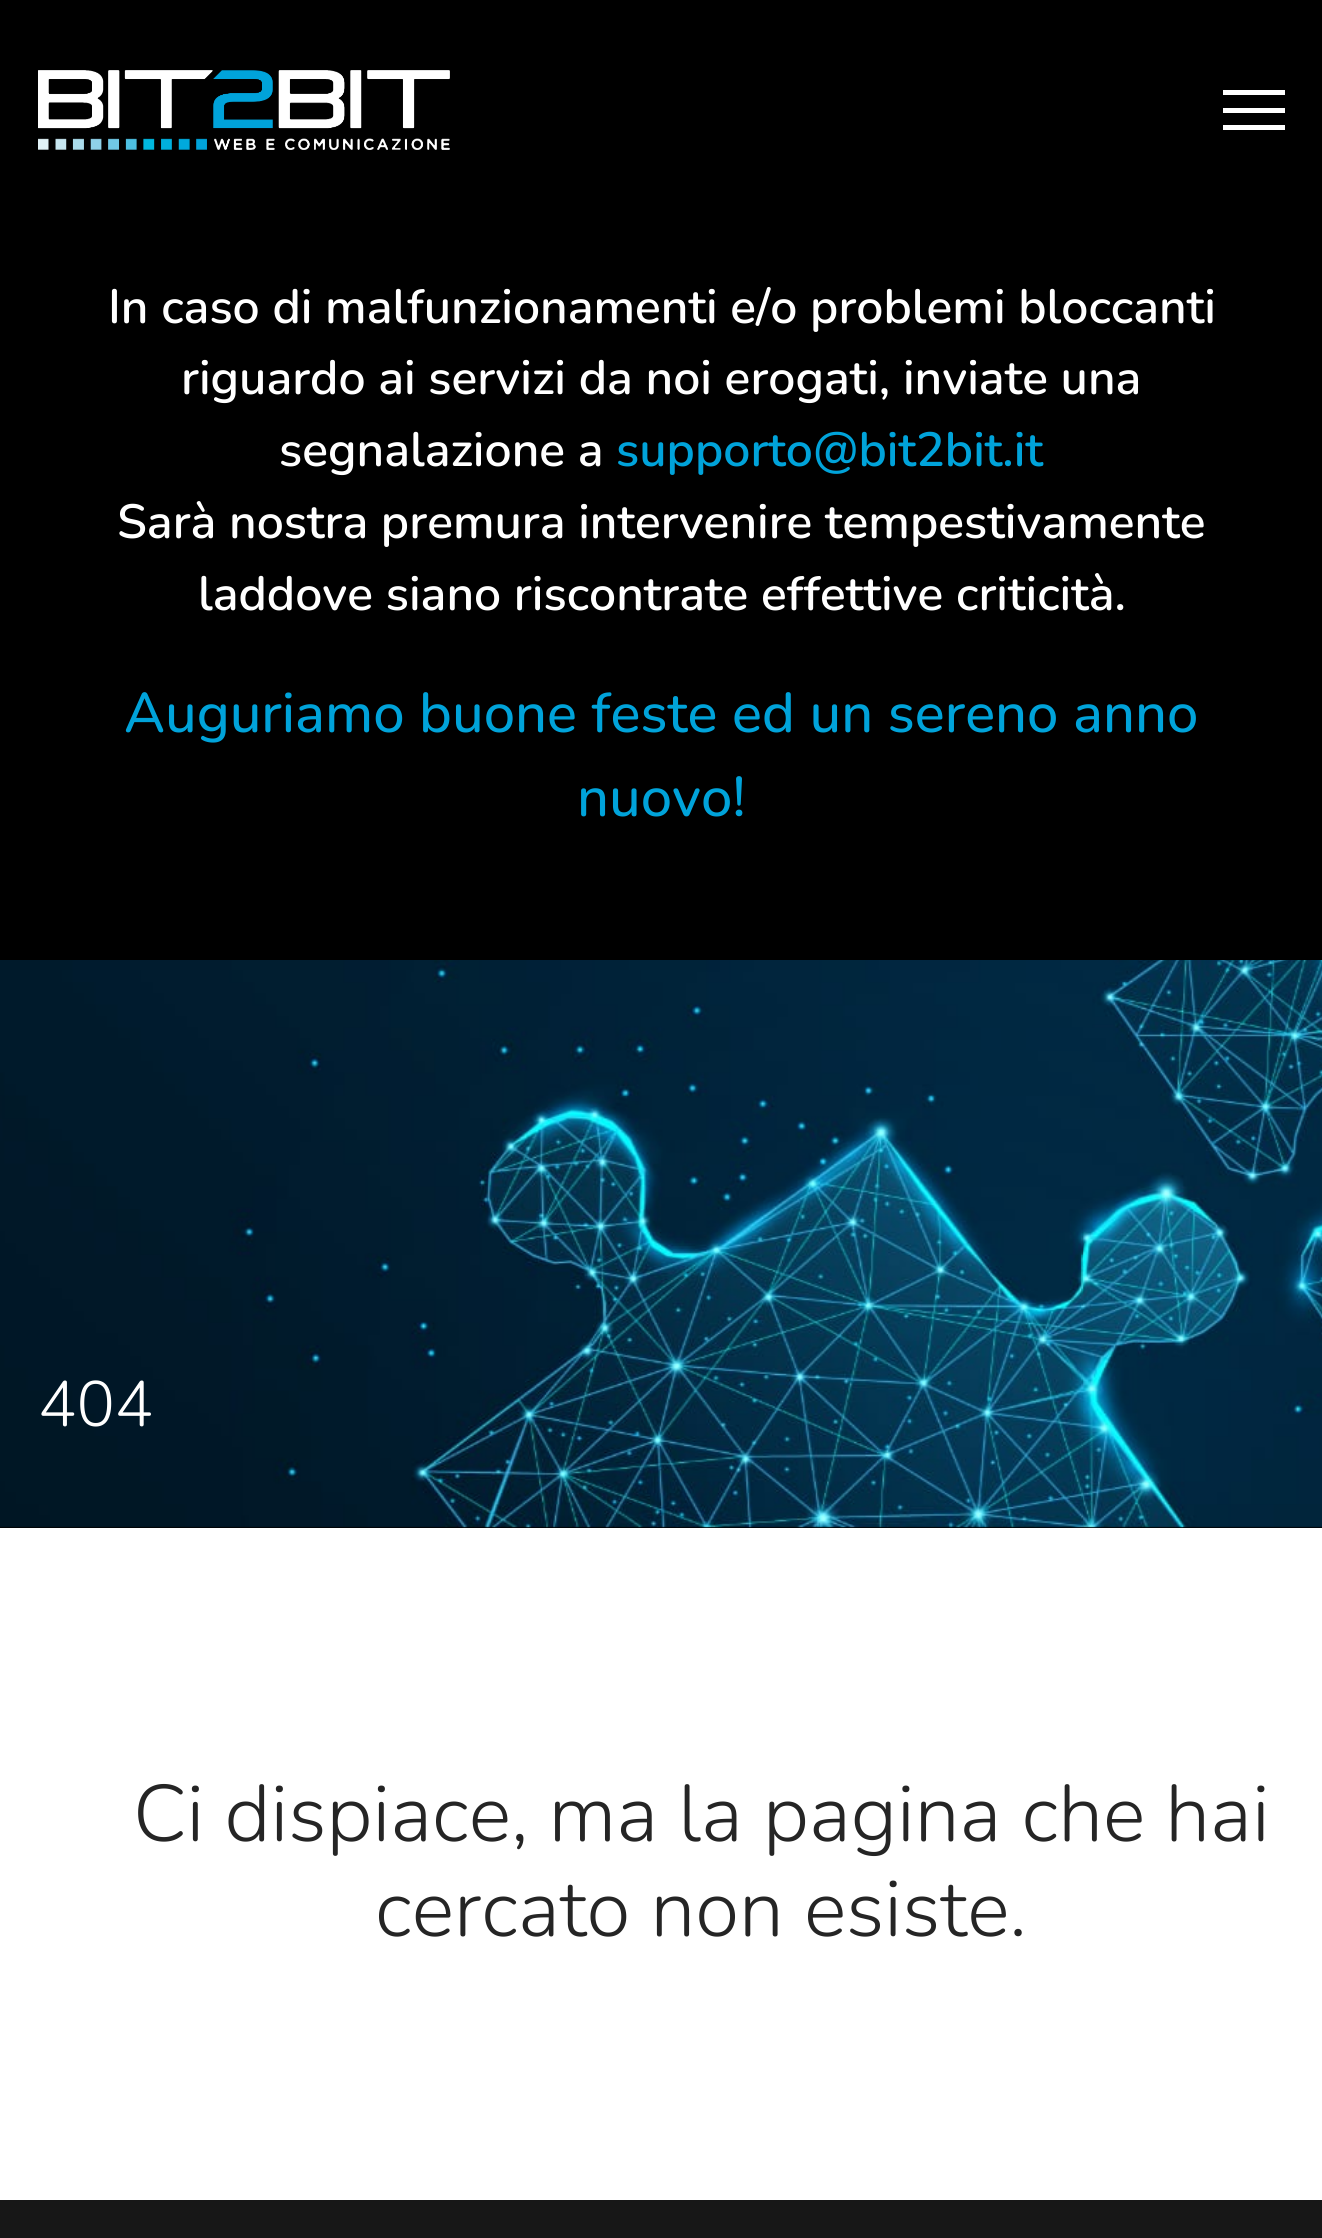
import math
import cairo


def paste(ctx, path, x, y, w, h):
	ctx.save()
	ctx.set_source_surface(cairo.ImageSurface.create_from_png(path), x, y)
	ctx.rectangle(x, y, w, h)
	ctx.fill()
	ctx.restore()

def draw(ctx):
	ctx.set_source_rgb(1, 1, 1)
	ctx.paint()
	ctx.set_source_rgb(0, 0, 0)
	ctx.rectangle(0, 0, 1322, 960)
	ctx.fill()
	paste(ctx, 'media/1.png', 38, 70, 412, 80)
	ctx.set_source_rgb(1, 1, 1)
	ctx.rectangle(1223, 90, 62, 5)
	ctx.rectangle(1223, 108, 62, 5)
	ctx.rectangle(1223, 125, 62, 5)
	ctx.fill()
	ctx.select_font_face('Nunito SemiBold')
	ctx.set_font_size(48)
	for x, y, s in [
		(108, 323, 'In caso di malfunzionamenti e/o problemi bloccanti'),
		(181, 394, 'riguardo ai servizi da noi erogati, inviate una'),
		(279, 466, 'segnalazione a'),
	]:
		ctx.move_to(x, y)
		ctx.show_text(s)
	ctx.set_source_rgb(0, 0.639, 0.855)
	ctx.move_to(616, 466)
	ctx.show_text('supporto@bit2bit.it')
	ctx.set_source_rgb(1, 1, 1)
	ctx.move_to(117, 538)
	ctx.show_text('Sarà nostra premura intervenire tempestivamente')
	ctx.move_to(198, 610)
	ctx.show_text('laddove siano riscontrate effettive criticità.')
	ctx.select_font_face('Nunito Medium')
	ctx.set_font_size(56)
	ctx.set_source_rgb(0, 0.639, 0.855)
	ctx.move_to(124, 732)
	ctx.show_text('Auguriamo buone feste ed un sereno anno')
	ctx.move_to(577, 816)
	ctx.show_text('nuovo!')
	ctx.set_source_rgb(0, 0, 0)
	ctx.rectangle(0, 1526, 1322, 2)
	ctx.fill()
	paste(ctx, 'media/2.png', 0, 960, 1322, 568)
	ctx.select_font_face('Nunito Light')
	ctx.set_font_size(64)
	ctx.set_source_rgb(1, 1, 1)
	ctx.move_to(38, 1426)
	ctx.show_text('404')
	ctx.set_font_size(80)
	ctx.set_source_rgb(0.145, 0.145, 0.145)
	ctx.move_to(133, 1841)
	ctx.show_text('Ci dispiace, ma la pagina che hai')
	ctx.move_to(375, 1936)
	ctx.show_text('cercato non esiste.')
	ctx.set_source_rgb(0.09, 0.09, 0.09)
	ctx.rectangle(0, 2200, 1322, 38)
	ctx.fill()


surface = cairo.ImageSurface(cairo.FORMAT_RGB24, 1322, 2238)
ctx = cairo.Context(surface)
options = cairo.FontOptions()
options.set_hint_metrics(cairo.HINT_METRICS_OFF)
options.set_hint_style(cairo.HINT_STYLE_NONE)
ctx.set_font_options(options)
ctx.set_miter_limit(4)
draw(ctx)
surface.write_to_png('image.png')
